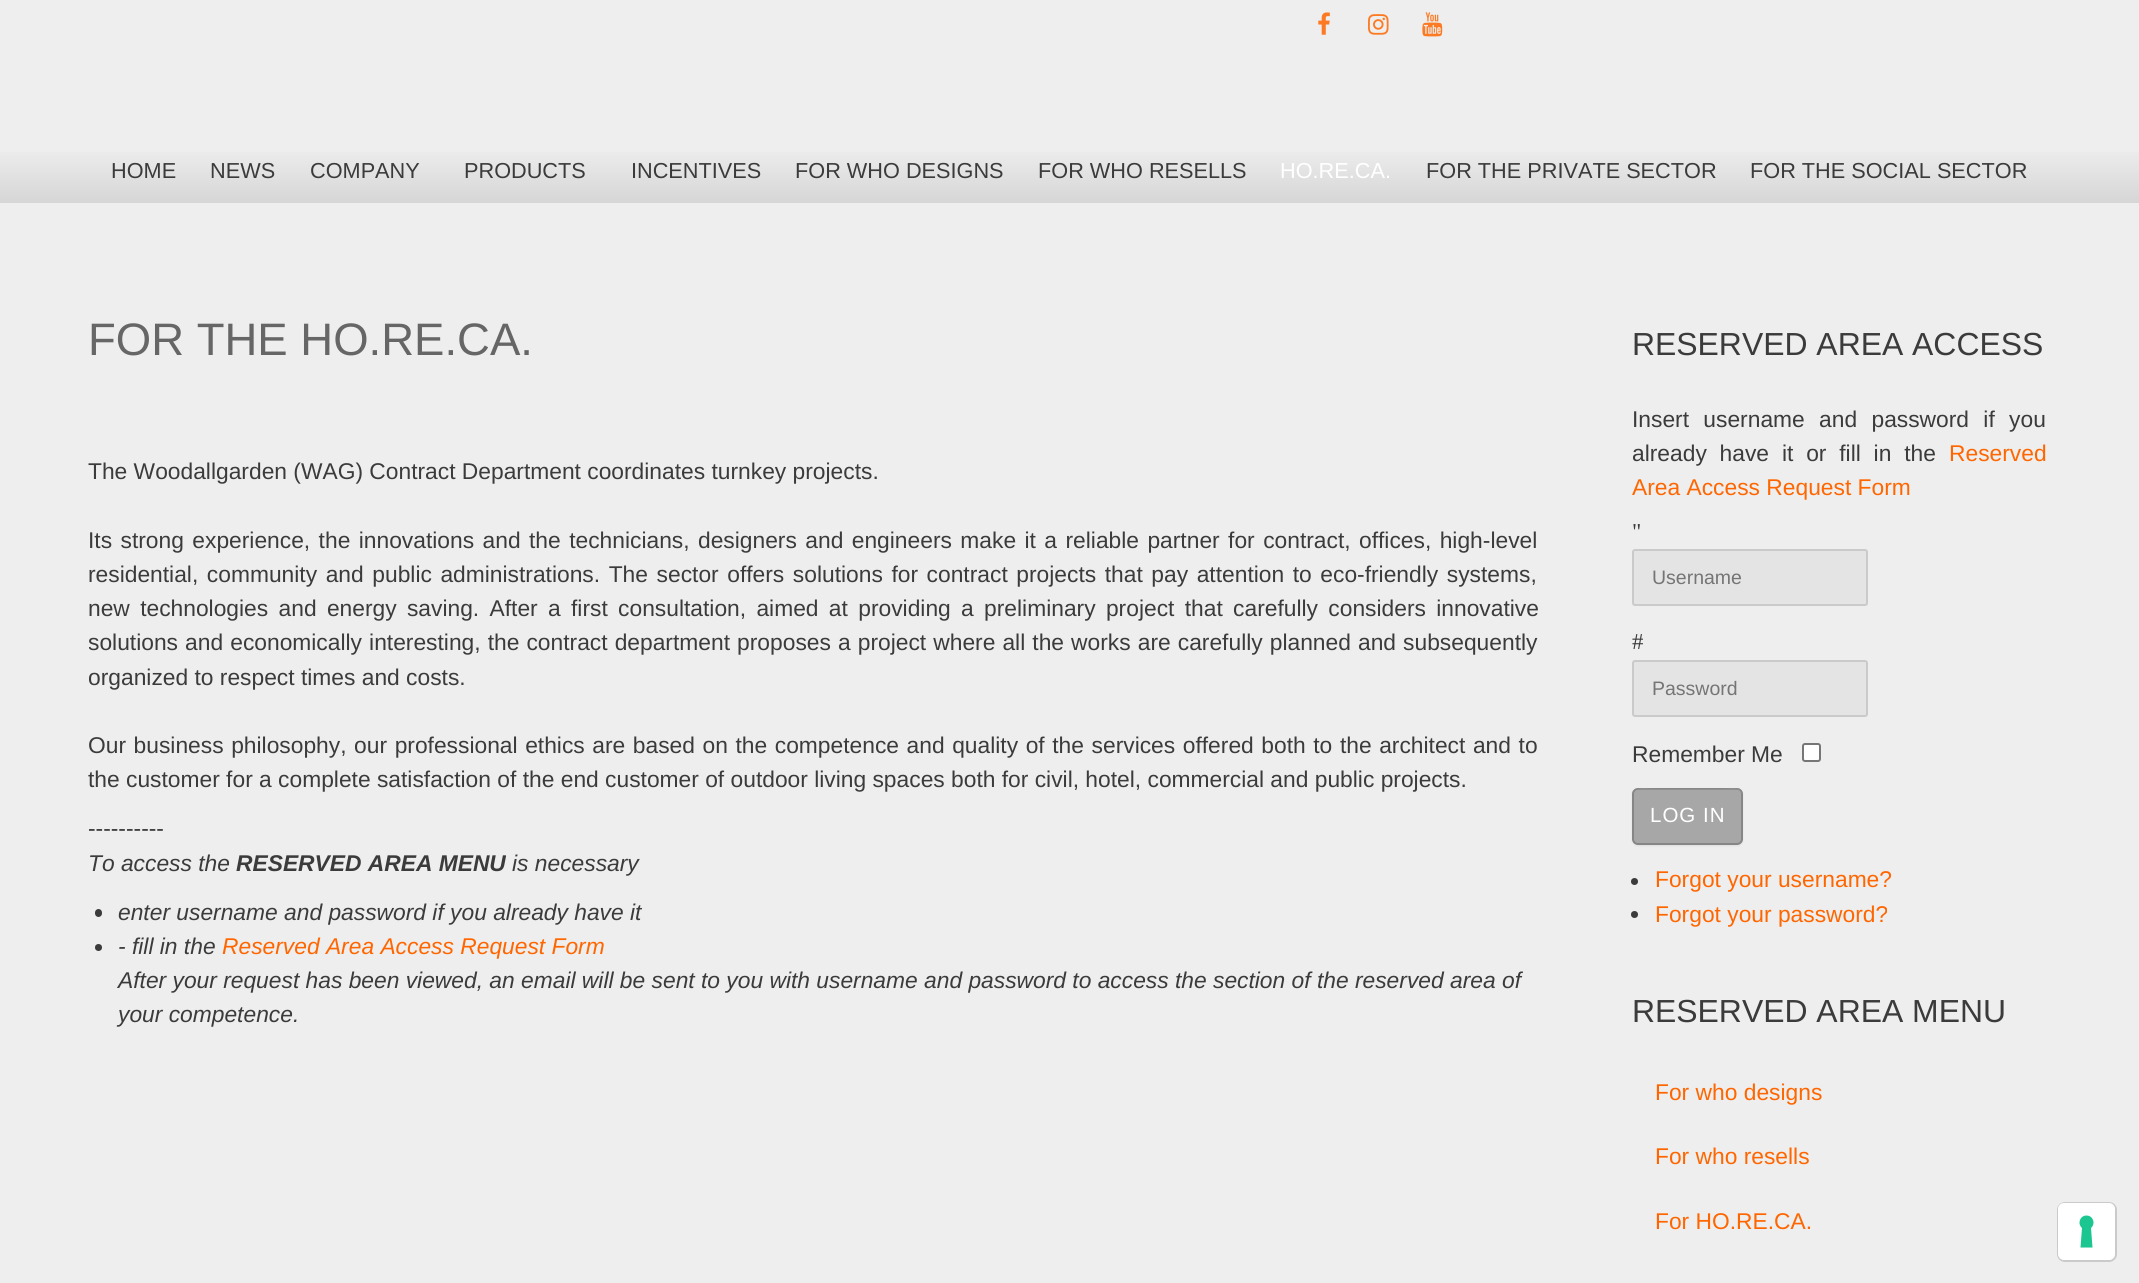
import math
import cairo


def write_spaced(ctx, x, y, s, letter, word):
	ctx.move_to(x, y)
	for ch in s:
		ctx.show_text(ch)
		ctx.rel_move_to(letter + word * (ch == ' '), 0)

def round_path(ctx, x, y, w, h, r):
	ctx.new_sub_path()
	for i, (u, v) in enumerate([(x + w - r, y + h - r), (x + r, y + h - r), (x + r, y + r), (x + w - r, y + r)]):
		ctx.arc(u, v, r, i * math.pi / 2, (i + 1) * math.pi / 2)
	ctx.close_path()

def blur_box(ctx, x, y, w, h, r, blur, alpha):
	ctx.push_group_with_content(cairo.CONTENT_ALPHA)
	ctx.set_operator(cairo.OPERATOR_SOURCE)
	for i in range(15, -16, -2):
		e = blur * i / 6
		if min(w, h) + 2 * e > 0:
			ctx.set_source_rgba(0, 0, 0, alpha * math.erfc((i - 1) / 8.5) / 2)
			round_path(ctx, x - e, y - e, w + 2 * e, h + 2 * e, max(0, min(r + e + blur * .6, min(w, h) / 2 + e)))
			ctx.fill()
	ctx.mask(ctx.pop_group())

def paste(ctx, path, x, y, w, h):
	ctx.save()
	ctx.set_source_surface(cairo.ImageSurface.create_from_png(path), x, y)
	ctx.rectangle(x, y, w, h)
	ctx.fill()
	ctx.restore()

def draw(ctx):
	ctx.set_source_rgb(0.933, 0.933, 0.933)
	ctx.paint()
	paste(ctx, 'media/1.png', 1318, 12, 12, 23)
	paste(ctx, 'media/2.png', 1368, 14, 21, 21)
	paste(ctx, 'media/3.png', 1422, 12, 21, 25)
	gradient = cairo.LinearGradient(1070, 141, 1070, 203)
	gradient.add_color_stop_rgba(0, 0.941, 0.941, 0.941, 1)
	gradient.add_color_stop_rgba(1, 0.839, 0.839, 0.839, 1)
	ctx.set_source(gradient)
	ctx.rectangle(0, 152, 2139, 51)
	ctx.fill()
	ctx.select_font_face('Liberation Sans')
	ctx.set_font_size(21.7)
	ctx.set_source_rgb(0.231, 0.231, 0.231)
	for x, y, s in [
		(111, 178, 'HOME'),
		(210, 178, 'NEWS'),
		(310, 178, 'COMPANY'),
		(464, 178, 'PRODUCTS'),
		(631, 178, 'INCENTIVES'),
		(795, 178, 'FOR WHO DESIGNS'),
		(1038, 178, 'FOR WHO RESELLS'),
	]:
		ctx.move_to(x, y)
		ctx.show_text(s)
	ctx.set_source_rgb(1, 1, 1)
	ctx.move_to(1280, 178)
	ctx.show_text('HO.RE.CA.')
	ctx.set_source_rgb(0.231, 0.231, 0.231)
	ctx.move_to(1426, 178)
	ctx.show_text('FOR THE PRIVATE SECTOR')
	ctx.move_to(1750, 178)
	ctx.show_text('FOR THE SOCIAL SECTOR')
	ctx.set_font_size(45.5)
	ctx.set_source_rgb(0.4, 0.4, 0.4)
	ctx.move_to(88, 355)
	ctx.show_text('FOR THE HO.RE.CA.')
	ctx.set_font_size(22.8)
	ctx.set_source_rgb(0.231, 0.231, 0.231)
	ctx.move_to(88, 479)
	ctx.show_text('The Woodallgarden (WAG) Contract Department coordinates turnkey projects.')
	write_spaced(ctx, 88, 548, 'Its strong experience, the innovations and the technicians, designers and engineers make it a reliable partner for contract, offices, high-level', 0, 2.1)
	write_spaced(ctx, 88, 582, 'residential, community and public administrations. The sector offers solutions for contract projects that pay attention to eco-friendly systems,', 0, 2.25)
	write_spaced(ctx, 88, 616, 'new technologies and energy saving. After a first consultation, aimed at providing a preliminary project that carefully considers innovative', 0, 4)
	ctx.save()
	ctx.rectangle(89, 407, 1449, 640)
	ctx.clip()
	write_spaced(ctx, 88, 650, 'solutions and economically interesting, the contract department proposes a project where all the works are carefully planned and subsequently', 0, 0.75)
	ctx.move_to(88, 685)
	ctx.show_text('organized to respect times and costs.')
	ctx.restore()
	write_spaced(ctx, 88, 753, 'Our business philosophy, our professional ethics are based on the competence and quality of the services offered both to the architect and to', 0, 1.25)
	ctx.move_to(88, 787)
	ctx.show_text('the customer for a complete satisfaction of the end customer of outdoor living spaces both for civil, hotel, commercial and public projects.')
	ctx.move_to(88, 836)
	ctx.show_text('----------')
	ctx.select_font_face('Liberation Sans', cairo.FONT_SLANT_ITALIC)
	ctx.move_to(88, 871)
	ctx.show_text('To access the')
	ctx.select_font_face('Liberation Sans', cairo.FONT_SLANT_ITALIC, cairo.FONT_WEIGHT_BOLD)
	ctx.move_to(236, 871)
	ctx.show_text('RESERVED AREA MENU')
	ctx.select_font_face('Liberation Sans', cairo.FONT_SLANT_ITALIC)
	ctx.move_to(512, 871)
	ctx.show_text('is necessary')
	round_path(ctx, 95, 909, 7, 8, 3.5)
	ctx.fill()
	ctx.move_to(118, 920)
	ctx.show_text('enter username and password if you already have it')
	ctx.new_path()
	ctx.arc(98.5, 947.5, 3.5, 0, 2 * math.pi)
	ctx.fill()
	ctx.move_to(118, 954)
	ctx.show_text('- fill in the')
	ctx.set_source_rgb(1, 0.4, 0)
	ctx.move_to(222, 954)
	ctx.show_text('Reserved Area Access Request Form')
	ctx.set_source_rgb(0.231, 0.231, 0.231)
	ctx.move_to(118, 988)
	ctx.show_text('After your request has been viewed, an email will be sent to you with username and password to access the section of the reserved area of')
	ctx.move_to(118, 1022)
	ctx.show_text('your competence.')
	ctx.select_font_face('Liberation Sans')
	ctx.set_font_size(31.9)
	ctx.move_to(1632, 355)
	ctx.show_text('RESERVED AREA ACCESS')
	ctx.set_font_size(22.8)
	write_spaced(ctx, 1632, 427, 'Insert username and password if you', 0, 8)
	write_spaced(ctx, 1632, 461, 'already have it or fill in the', 0, 6.5)
	ctx.set_source_rgb(1, 0.4, 0)
	ctx.move_to(1949, 461)
	ctx.show_text('Reserved')
	ctx.move_to(1632, 495)
	ctx.show_text('Area Access Request Form')
	ctx.select_font_face('Liberation Serif')
	ctx.set_source_rgb(0.231, 0.231, 0.231)
	ctx.move_to(1632, 539)
	ctx.show_text('"')
	ctx.set_source_rgb(0.894, 0.894, 0.894)
	round_path(ctx, 1632, 549, 236, 57, 3)
	ctx.fill()
	round_path(ctx, 1633, 550, 234, 55, 2)
	ctx.set_source_rgba(0.392, 0.392, 0.392, 0.2)
	ctx.stroke()
	ctx.select_font_face('Liberation Sans')
	ctx.set_font_size(19.5)
	ctx.set_source_rgb(0.459, 0.459, 0.459)
	ctx.move_to(1652, 584)
	ctx.show_text('Username')
	ctx.select_font_face('Liberation Serif')
	ctx.set_font_size(22.8)
	ctx.set_source_rgb(0.231, 0.231, 0.231)
	ctx.move_to(1632, 649)
	ctx.show_text('#')
	ctx.set_source_rgb(0.894, 0.894, 0.894)
	round_path(ctx, 1632, 660, 236, 57, 3)
	ctx.fill()
	round_path(ctx, 1633, 661, 234, 55, 2)
	ctx.set_source_rgba(0.392, 0.392, 0.392, 0.2)
	ctx.stroke()
	ctx.select_font_face('Liberation Sans')
	ctx.set_font_size(19.5)
	ctx.set_source_rgb(0.459, 0.459, 0.459)
	ctx.move_to(1652, 695)
	ctx.show_text('Password')
	ctx.set_font_size(22.8)
	ctx.set_source_rgb(0.231, 0.231, 0.231)
	ctx.move_to(1632, 762)
	ctx.show_text('Remember Me')
	ctx.set_source_rgb(1, 1, 1)
	round_path(ctx, 1803, 744, 17, 17, 2)
	ctx.fill_preserve()
	ctx.set_source_rgb(0.463, 0.463, 0.463)
	ctx.stroke()
	ctx.save()
	ctx.set_fill_rule(cairo.FILL_RULE_EVEN_ODD)
	ctx.new_path()
	ctx.move_to(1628, 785)
	ctx.line_to(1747, 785)
	ctx.line_to(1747, 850)
	ctx.line_to(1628, 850)
	ctx.close_path()
	ctx.move_to(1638, 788)
	ctx.line_to(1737, 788)
	ctx.curve_to(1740.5, 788, 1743, 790.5, 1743, 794)
	ctx.line_to(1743, 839)
	ctx.curve_to(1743, 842.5, 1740.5, 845, 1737, 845)
	ctx.line_to(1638, 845)
	ctx.curve_to(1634.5, 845, 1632, 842.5, 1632, 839)
	ctx.line_to(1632, 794)
	ctx.curve_to(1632, 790.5, 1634.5, 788, 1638, 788)
	ctx.close_path()
	ctx.clip()
	ctx.set_source_rgb(0, 0, 0)
	blur_box(ctx, 1632, 789, 111, 57, 6, 1, 0.07)
	ctx.restore()
	ctx.set_source_rgba(0, 0, 0, 0.3)
	round_path(ctx, 1632, 788, 111, 57, 6)
	ctx.fill()
	ctx.set_source_rgb(0.706, 0.706, 0.706)
	ctx.new_path()
	ctx.move_to(1638, 790)
	ctx.line_to(1737, 790)
	ctx.curve_to(1739, 790, 1742, 793, 1742, 795)
	ctx.curve_to(1742, 785, 1726, 789, 1721, 789)
	ctx.line_to(1655, 789)
	ctx.curve_to(1650, 789, 1634, 785, 1634, 795)
	ctx.curve_to(1634, 793, 1636, 790, 1638, 790)
	ctx.close_path()
	ctx.fill()
	round_path(ctx, 1633, 789, 109, 55, 5)
	ctx.set_source_rgba(0, 0, 0, 0.2)
	ctx.stroke()
	ctx.set_font_size(20.5)
	ctx.set_source_rgb(1, 1, 1)
	write_spaced(ctx, 1650, 822, 'LOG IN', 1, 0)
	ctx.set_source_rgb(0.231, 0.231, 0.231)
	ctx.new_path()
	ctx.arc(1634.5, 881.5, 3.5, 0, 2 * math.pi)
	ctx.fill()
	ctx.set_font_size(22.8)
	ctx.set_source_rgb(1, 0.4, 0)
	ctx.move_to(1655, 887)
	ctx.show_text('Forgot your username?')
	ctx.set_source_rgb(0.231, 0.231, 0.231)
	ctx.new_path()
	ctx.arc(1634.5, 914.5, 3.5, 0, 2 * math.pi)
	ctx.fill()
	ctx.set_source_rgb(1, 0.4, 0)
	ctx.move_to(1655, 922)
	ctx.show_text('Forgot your password?')
	ctx.set_font_size(31.9)
	ctx.set_source_rgb(0.231, 0.231, 0.231)
	ctx.move_to(1632, 1022)
	ctx.show_text('RESERVED AREA MENU')
	ctx.set_font_size(22.8)
	ctx.set_source_rgb(1, 0.4, 0)
	for x, y, s in [
		(1655, 1100, 'For who designs'),
		(1655, 1164, 'For who resells'),
		(1655, 1229, 'For HO.RE.CA.'),
	]:
		ctx.move_to(x, y)
		ctx.show_text(s)
	round_path(ctx, 2058, 1203, 58, 58, 7)
	ctx.set_source_rgb(0.792, 0.792, 0.792)
	ctx.stroke()
	ctx.set_source_rgb(1, 1, 1)
	round_path(ctx, 2058, 1203, 57, 57, 6)
	ctx.fill()
	ctx.set_source_rgb(0.11, 0.776, 0.569)
	ctx.set_fill_rule(cairo.FILL_RULE_EVEN_ODD)
	ctx.new_path()
	ctx.move_to(2086.5, 1215.5)
	ctx.curve_to(2093, 1215.5, 2096, 1223.5, 2091, 1228)
	ctx.line_to(2092.5, 1247.5)
	ctx.line_to(2080.5, 1247.5)
	ctx.line_to(2082, 1228)
	ctx.curve_to(2077, 1223.5, 2080, 1215.5, 2086.5, 1215.5)
	ctx.close_path()
	ctx.fill()


surface = cairo.ImageSurface(cairo.FORMAT_RGB24, 2139, 1283)
ctx = cairo.Context(surface)
options = cairo.FontOptions()
options.set_hint_metrics(cairo.HINT_METRICS_OFF)
options.set_hint_style(cairo.HINT_STYLE_NONE)
ctx.set_font_options(options)
ctx.set_miter_limit(4)
draw(ctx)
surface.write_to_png('image.png')
